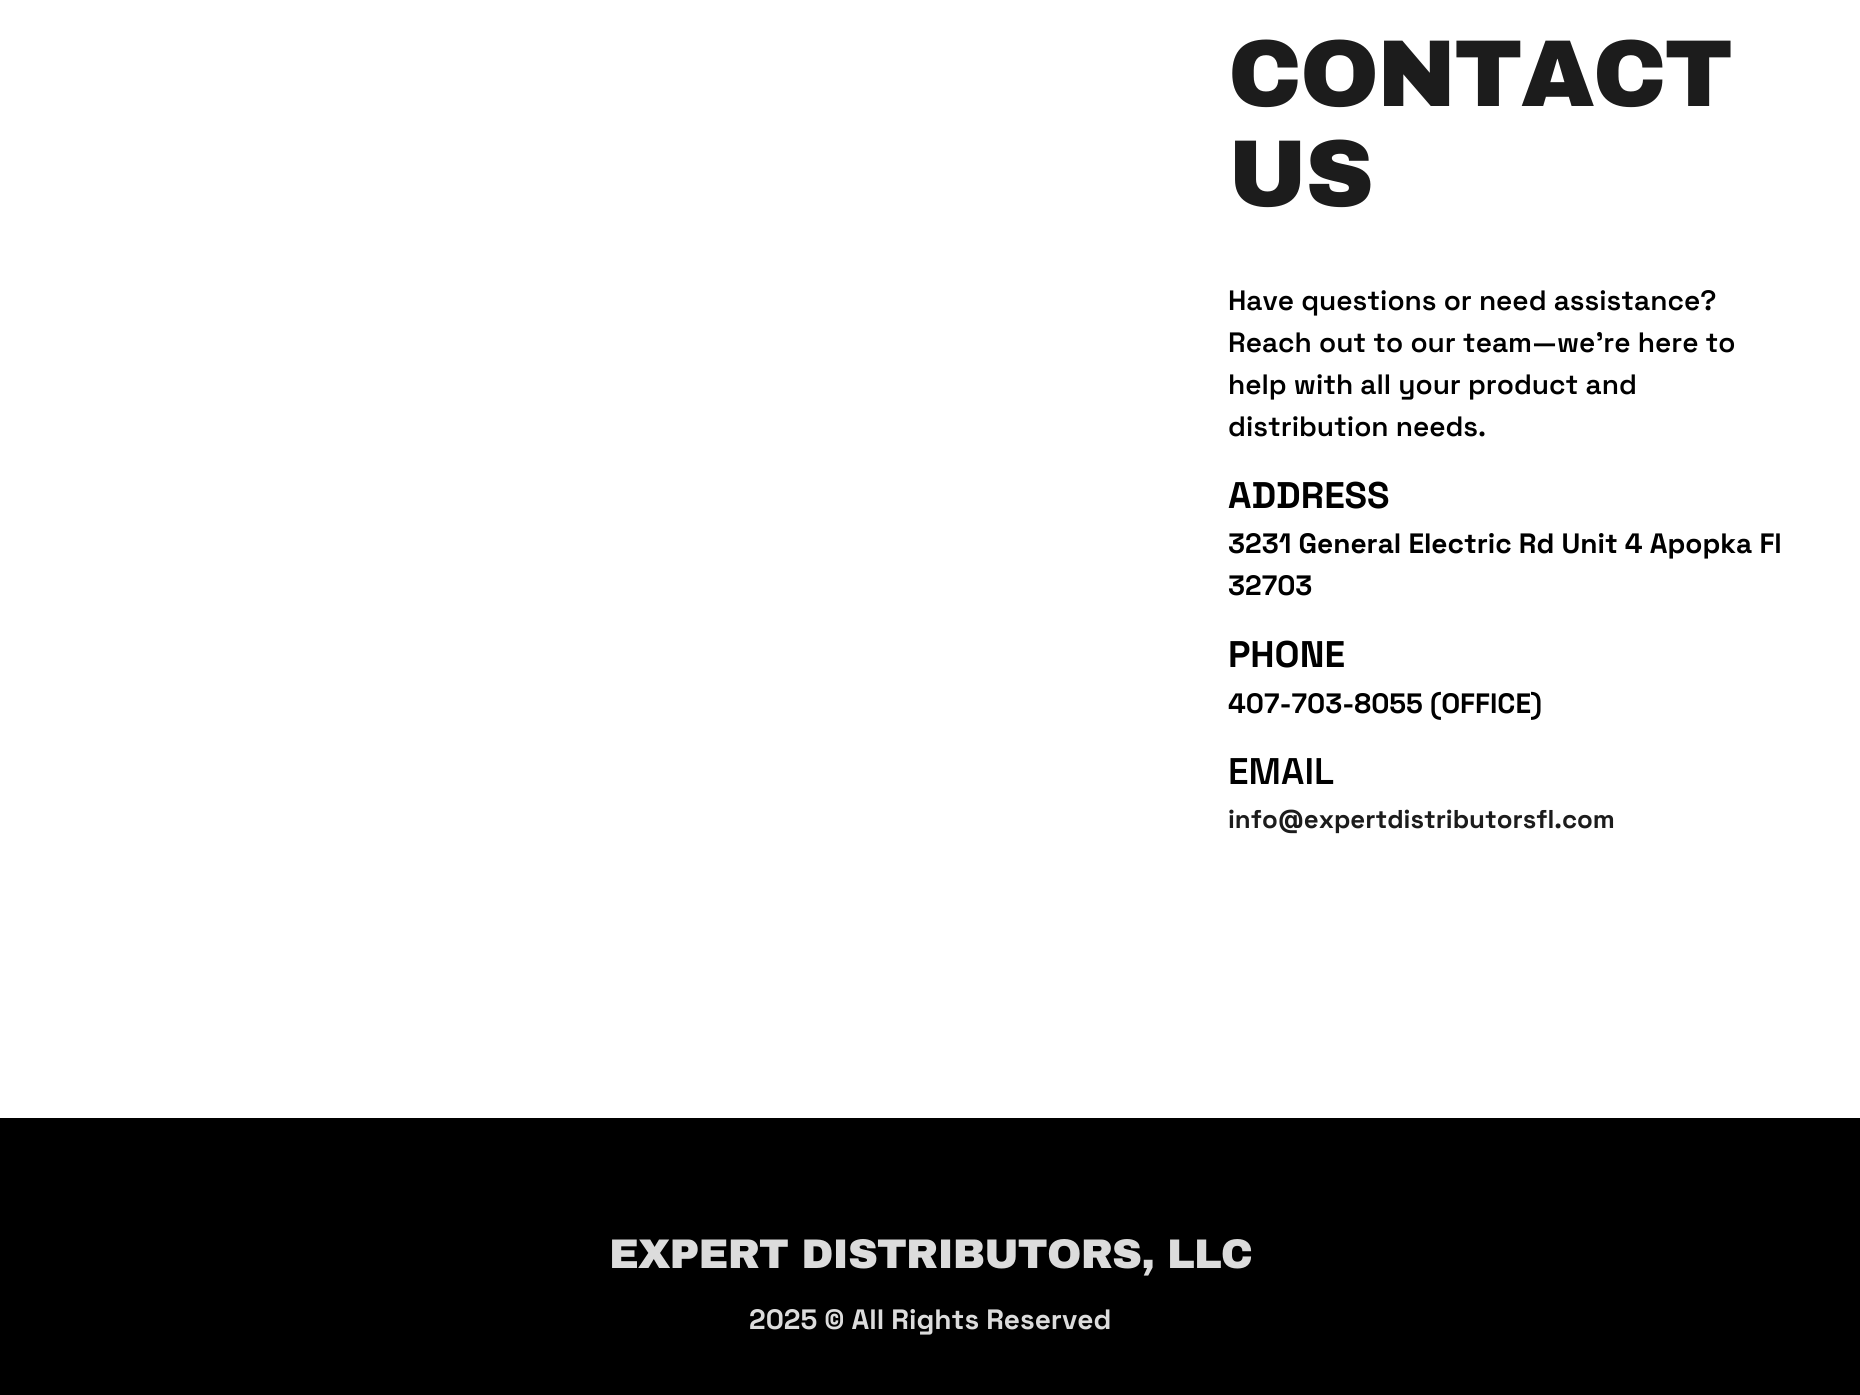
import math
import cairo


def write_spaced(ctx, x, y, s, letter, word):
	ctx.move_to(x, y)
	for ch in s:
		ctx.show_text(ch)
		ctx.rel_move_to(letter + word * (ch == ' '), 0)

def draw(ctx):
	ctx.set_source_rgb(1, 1, 1)
	ctx.paint()
	ctx.select_font_face('Archivo Black Black')
	ctx.set_font_size(95)
	ctx.set_source_rgb(0.11, 0.11, 0.11)
	write_spaced(ctx, 1228, 106, 'CONTACT', -2, 0)
	write_spaced(ctx, 1228, 206, 'US', -2, 0)
	ctx.select_font_face('Space Grotesk SemiBold')
	ctx.set_font_size(28)
	ctx.set_source_rgb(0, 0, 0)
	for x, y, s in [
		(1228, 310, 'Have questions or need assistance?'),
		(1228, 352, 'Reach out to our team—we’re here to'),
		(1228, 394, 'help with all your product and'),
		(1228, 436, 'distribution needs.'),
	]:
		ctx.move_to(x, y)
		ctx.show_text(s)
	ctx.select_font_face('Space Grotesk', cairo.FONT_SLANT_NORMAL, cairo.FONT_WEIGHT_BOLD)
	ctx.set_font_size(37)
	ctx.move_to(1228, 508)
	ctx.show_text('ADDRESS')
	ctx.set_font_size(28)
	ctx.move_to(1228, 553)
	ctx.show_text('3231 General Electric Rd Unit 4 Apopka Fl')
	ctx.move_to(1228, 595)
	ctx.show_text('32703')
	ctx.set_font_size(37)
	ctx.move_to(1228, 667)
	ctx.show_text('PHONE')
	ctx.set_font_size(28)
	ctx.move_to(1228, 713)
	ctx.show_text('407-703-8055 (OFFICE)')
	ctx.select_font_face('Space Grotesk SemiBold')
	ctx.set_font_size(37)
	ctx.move_to(1228, 784)
	ctx.show_text('EMAIL')
	ctx.select_font_face('Space Grotesk', cairo.FONT_SLANT_NORMAL, cairo.FONT_WEIGHT_BOLD)
	ctx.set_font_size(25.75)
	ctx.set_source_rgb(0.11, 0.11, 0.11)
	ctx.move_to(1228, 828)
	ctx.show_text('info@expertdistributorsfl.com')
	ctx.set_source_rgb(0, 0, 0)
	ctx.rectangle(0, 1118, 1860, 277)
	ctx.fill()
	ctx.select_font_face('Archivo Black Black')
	ctx.set_font_size(41.4)
	ctx.set_source_rgb(0.863, 0.863, 0.863)
	write_spaced(ctx, 609, 1268, 'EXPERT DISTRIBUTORS, LLC', -0.8, 0)
	ctx.select_font_face('Space Grotesk', cairo.FONT_SLANT_NORMAL, cairo.FONT_WEIGHT_BOLD)
	ctx.set_font_size(28)
	ctx.move_to(749, 1329)
	ctx.show_text('2025 © All Rights Reserved')


surface = cairo.ImageSurface(cairo.FORMAT_RGB24, 1860, 1395)
ctx = cairo.Context(surface)
options = cairo.FontOptions()
options.set_hint_metrics(cairo.HINT_METRICS_OFF)
options.set_hint_style(cairo.HINT_STYLE_NONE)
ctx.set_font_options(options)
ctx.set_miter_limit(4)
draw(ctx)
surface.write_to_png('image.png')
